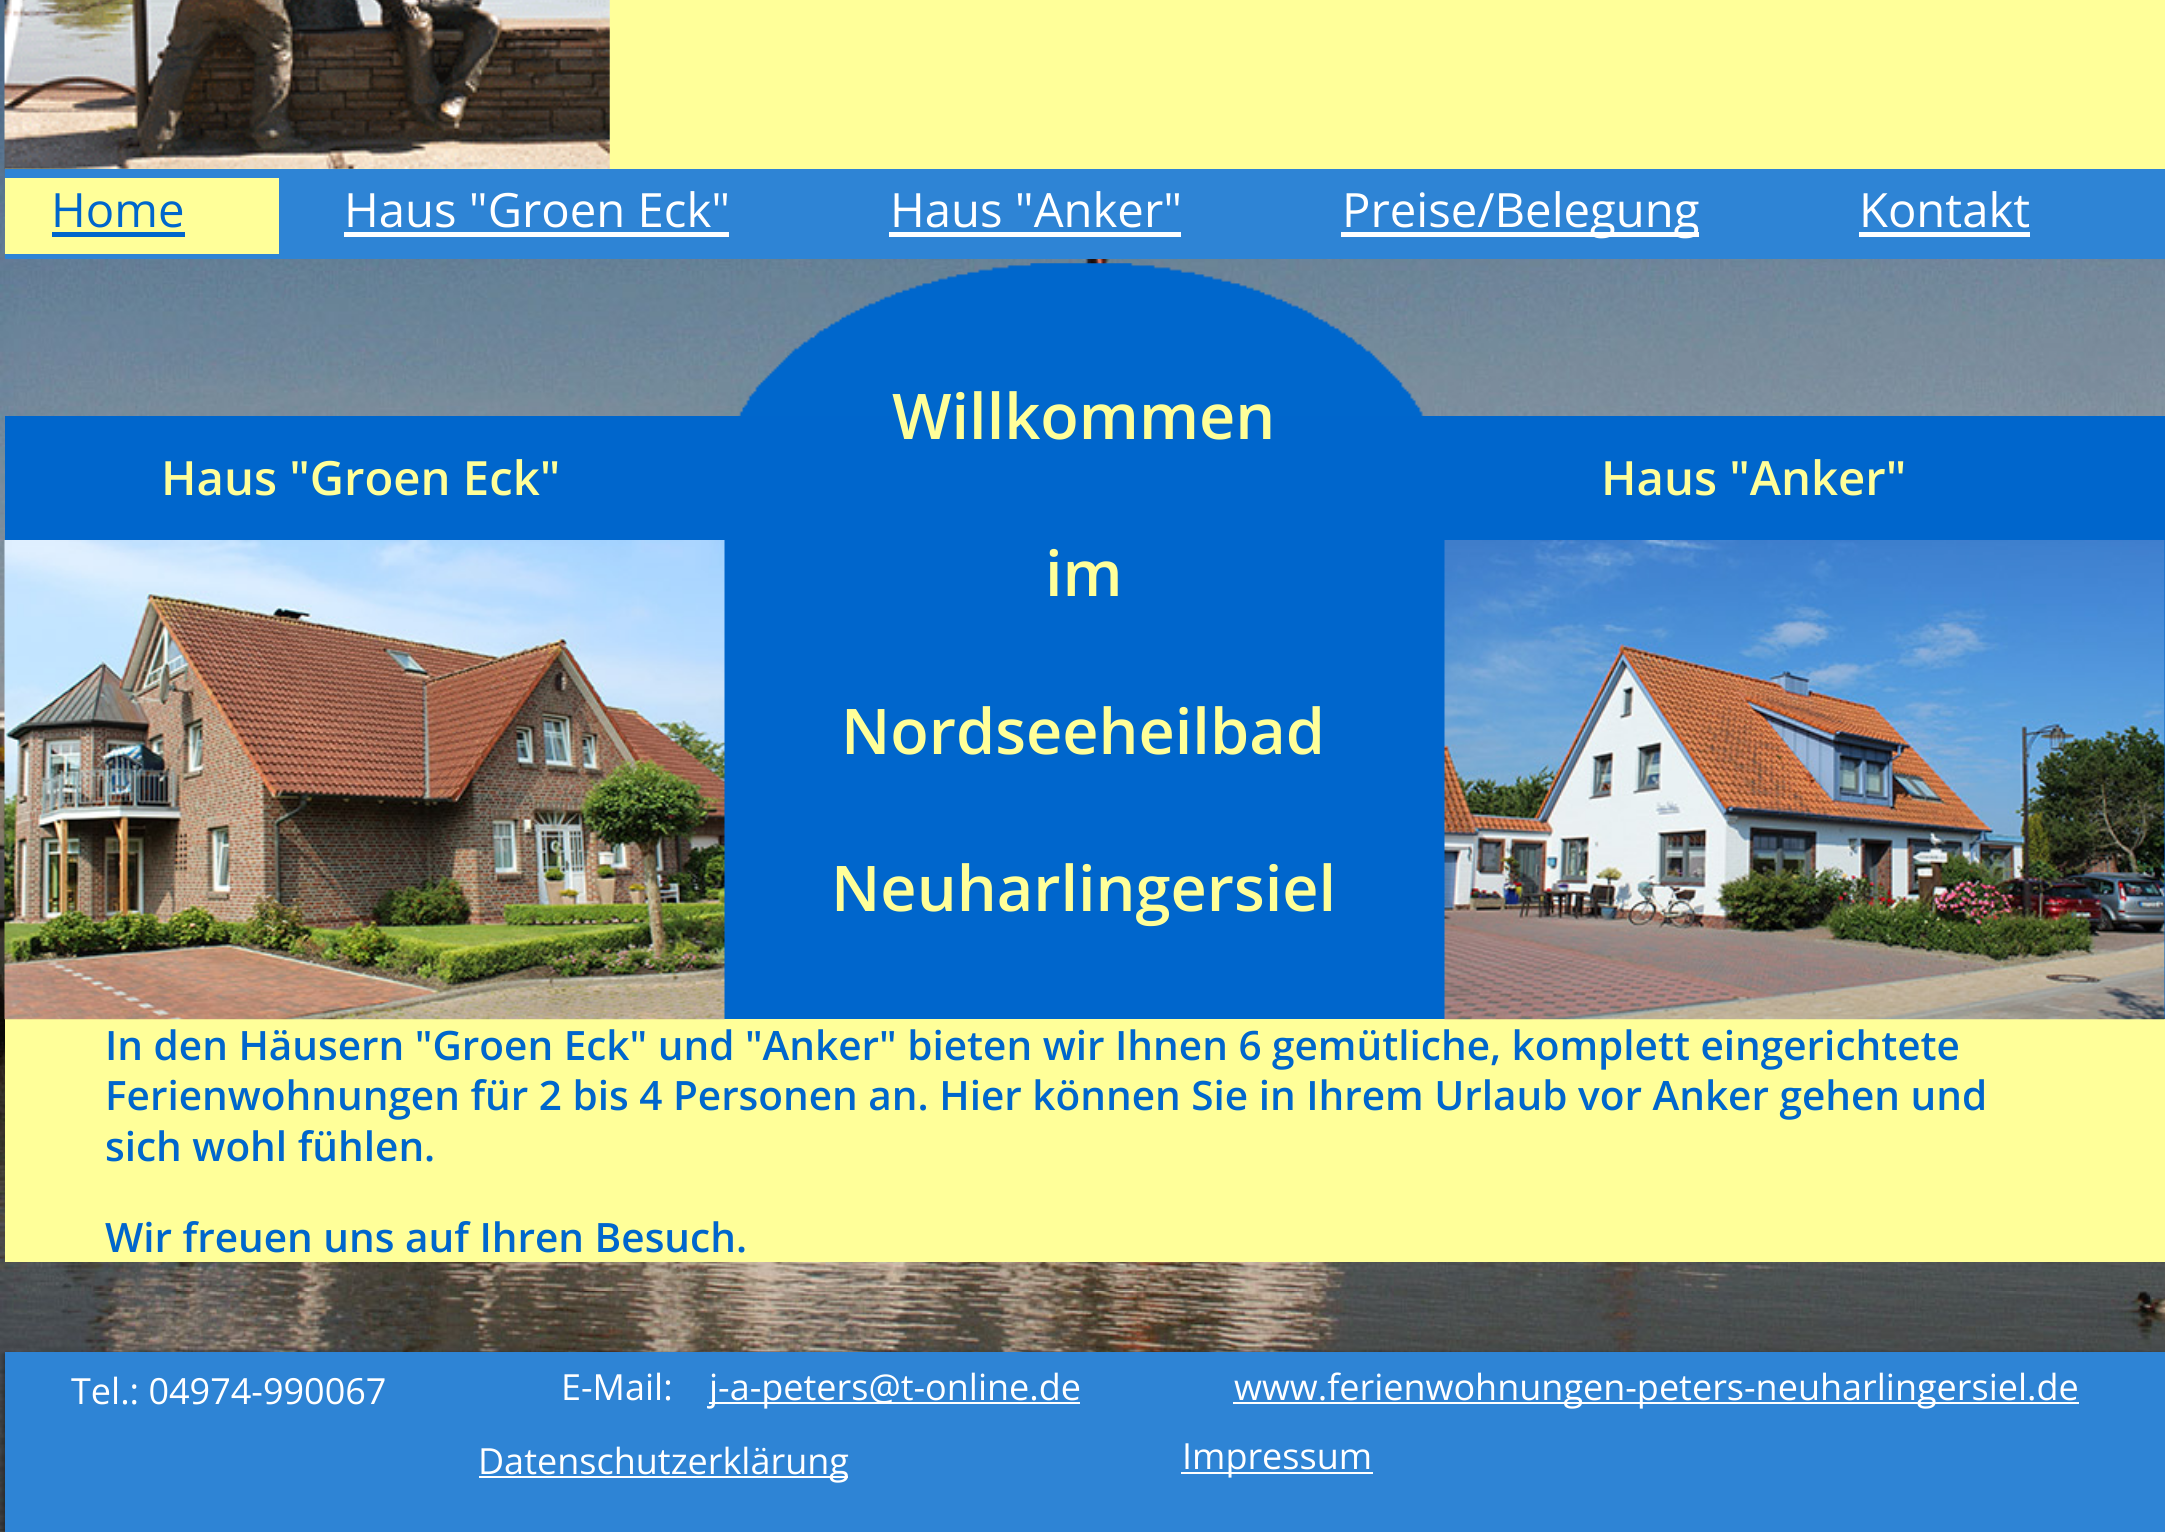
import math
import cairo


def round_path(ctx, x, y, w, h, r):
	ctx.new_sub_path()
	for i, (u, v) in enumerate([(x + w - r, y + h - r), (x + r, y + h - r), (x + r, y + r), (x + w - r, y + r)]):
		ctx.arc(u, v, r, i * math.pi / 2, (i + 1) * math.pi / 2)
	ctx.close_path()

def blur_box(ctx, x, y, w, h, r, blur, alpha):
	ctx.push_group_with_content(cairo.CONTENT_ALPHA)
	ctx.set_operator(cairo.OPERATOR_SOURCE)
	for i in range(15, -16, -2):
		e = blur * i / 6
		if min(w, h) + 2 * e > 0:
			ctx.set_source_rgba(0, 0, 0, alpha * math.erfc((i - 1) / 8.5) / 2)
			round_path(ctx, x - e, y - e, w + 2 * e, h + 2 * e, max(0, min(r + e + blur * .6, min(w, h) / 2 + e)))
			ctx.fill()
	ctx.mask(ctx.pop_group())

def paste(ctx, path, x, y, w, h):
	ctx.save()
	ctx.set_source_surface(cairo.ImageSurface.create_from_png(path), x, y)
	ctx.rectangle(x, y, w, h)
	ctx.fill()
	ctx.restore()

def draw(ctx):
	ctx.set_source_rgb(1, 1, 1)
	ctx.paint()
	paste(ctx, 'media/1.png', 0, 0, 2165, 1532)
	ctx.set_source_rgb(1, 1, 0.6)
	ctx.rectangle(5, 0, 2160, 169)
	ctx.fill()
	paste(ctx, 'media/2.png', 4, 0, 606, 169)
	ctx.set_source_rgb(0.18, 0.518, 0.835)
	ctx.rectangle(5, 169, 2160, 90)
	ctx.fill()
	ctx.set_source_rgb(1, 1, 0.6)
	ctx.rectangle(5, 178, 274, 76)
	ctx.fill()
	ctx.select_font_face('Open Sans')
	ctx.set_font_size(47.25)
	ctx.set_source_rgb(0, 0.4, 0.8)
	ctx.move_to(51, 227)
	ctx.show_text('Home')
	ctx.rectangle(52, 232, 133, 5)
	ctx.fill()
	ctx.set_source_rgb(1, 1, 1)
	ctx.move_to(344, 227)
	ctx.show_text('Haus "Groen Eck"')
	ctx.rectangle(344, 232, 385, 5)
	ctx.fill()
	ctx.move_to(890, 227)
	ctx.show_text('Haus "Anker"')
	ctx.rectangle(889, 232, 292, 5)
	ctx.fill()
	ctx.rectangle(1341, 232, 358, 5)
	ctx.fill()
	ctx.move_to(1342, 227)
	ctx.show_text('Preise/Belegung')
	ctx.move_to(1859, 227)
	ctx.show_text('Kontakt')
	ctx.rectangle(1859, 232, 171, 5)
	ctx.fill()
	ctx.set_source_rgb(0, 0.4, 0.8)
	ctx.rectangle(5, 416, 2160, 603)
	ctx.fill()
	ctx.select_font_face('Open Sans SemiBold')
	ctx.set_source_rgb(1, 1, 0.6)
	ctx.move_to(161, 495)
	ctx.show_text('Haus "Groen Eck"')
	ctx.rectangle(5, 1019, 2160, 243)
	ctx.fill()
	paste(ctx, 'media/3.png', 4, 540, 721, 480)
	paste(ctx, 'media/4.png', 738, 263, 687, 153)
	ctx.set_font_size(63)
	for x, y, s in [
		(892, 439, 'Willkommen'),
		(1045, 596, 'im'),
		(841, 754, 'Nordseeheilbad'),
		(831, 911, 'Neuharlingersiel'),
	]:
		ctx.move_to(x, y)
		ctx.show_text(s)
	ctx.set_font_size(47.25)
	ctx.move_to(1601, 495)
	ctx.show_text('Haus "Anker"')
	paste(ctx, 'media/5.png', 1444, 540, 721, 480)
	ctx.set_font_size(40.5)
	ctx.set_source_rgb(0, 0.4, 0.8)
	for x, y, s in [
		(105, 1060, 'In den Häusern "Groen Eck" und "Anker" bieten wir Ihnen 6 gemütliche, komplett eingerichtete'),
		(105, 1110, 'Ferienwohnungen für 2 bis 4 Personen an. Hier können Sie in Ihrem Urlaub vor Anker gehen und'),
		(105, 1161, 'sich wohl fühlen.'),
		(105, 1252, 'Wir freuen uns auf Ihren Besuch.'),
	]:
		ctx.move_to(x, y)
		ctx.show_text(s)
	ctx.set_source_rgb(0, 0, 0)
	blur_box(ctx, 5, 1355, 2160, 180, 0, 3.5, 0.55)
	ctx.set_source_rgb(0.18, 0.518, 0.835)
	ctx.rectangle(5, 1352, 2160, 180)
	ctx.fill()
	ctx.select_font_face('Open Sans')
	ctx.set_font_size(36)
	ctx.set_source_rgb(1, 1, 1)
	ctx.move_to(71, 1404)
	ctx.show_text('Tel.: 04974-990067')
	ctx.move_to(561, 1400)
	ctx.show_text('E-Mail:')
	ctx.rectangle(709, 1402, 371, 2)
	ctx.fill()
	ctx.move_to(709, 1400)
	ctx.show_text('j-a-peters@t-online.de')
	ctx.rectangle(1233, 1402, 846, 2)
	ctx.fill()
	ctx.move_to(1234, 1400)
	ctx.show_text('www.ferienwohnungen-peters-neuharlingersiel.de')
	ctx.rectangle(479, 1476, 369, 2)
	ctx.fill()
	ctx.move_to(478, 1474)
	ctx.show_text('Datenschutzerklärung')
	ctx.rectangle(1181, 1472, 192, 2)
	ctx.fill()
	ctx.move_to(1182, 1469)
	ctx.show_text('Impressum')


surface = cairo.ImageSurface(cairo.FORMAT_RGB24, 2165, 1532)
ctx = cairo.Context(surface)
options = cairo.FontOptions()
options.set_hint_metrics(cairo.HINT_METRICS_OFF)
options.set_hint_style(cairo.HINT_STYLE_NONE)
ctx.set_font_options(options)
ctx.set_miter_limit(4)
draw(ctx)
surface.write_to_png('image.png')
